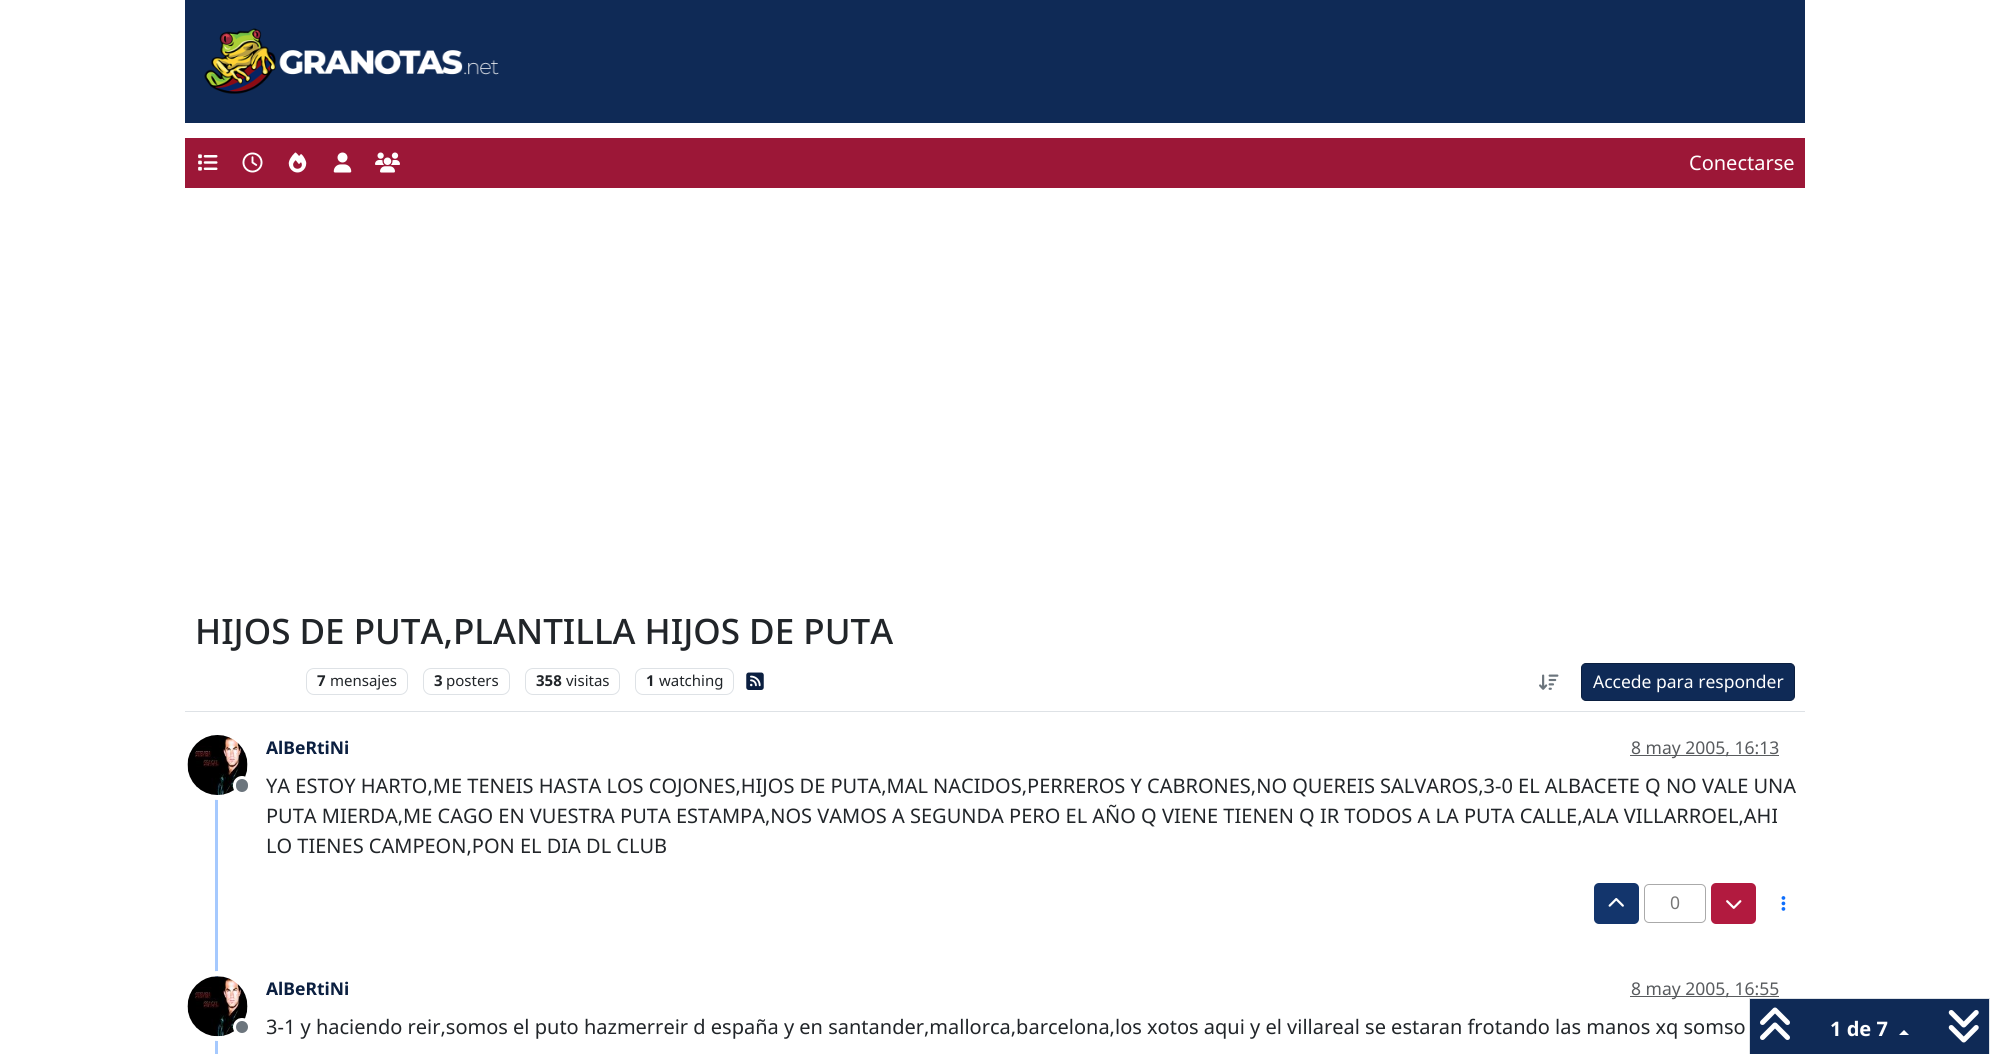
import math
import cairo


def round_path(ctx, x, y, w, h, r):
	ctx.new_sub_path()
	for i, (u, v) in enumerate([(x + w - r, y + h - r), (x + r, y + h - r), (x + r, y + r), (x + w - r, y + r)]):
		ctx.arc(u, v, r, i * math.pi / 2, (i + 1) * math.pi / 2)
	ctx.close_path()

def paste(ctx, path, x, y, w, h):
	ctx.save()
	ctx.set_source_surface(cairo.ImageSurface.create_from_png(path), x, y)
	ctx.rectangle(x, y, w, h)
	ctx.fill()
	ctx.restore()

def draw(ctx):
	ctx.set_source_rgb(1, 1, 1)
	ctx.paint()
	ctx.set_source_rgb(0.059, 0.165, 0.337)
	ctx.rectangle(185, 0, 1620, 123)
	ctx.fill()
	paste(ctx, 'media/1.png', 204, 28, 295, 66)
	ctx.set_source_rgb(0.612, 0.09, 0.216)
	ctx.rectangle(185, 138, 1620, 50)
	ctx.fill()
	paste(ctx, 'media/2.png', 198, 154, 20, 17)
	paste(ctx, 'media/3.png', 242, 152, 21, 21)
	paste(ctx, 'media/4.png', 288, 152, 19, 21)
	paste(ctx, 'media/5.png', 333, 152, 19, 21)
	paste(ctx, 'media/6.png', 375, 152, 25, 21)
	ctx.select_font_face('Noto Sans')
	ctx.set_font_size(20)
	ctx.set_source_rgb(1, 1, 1)
	ctx.move_to(1689, 170)
	ctx.show_text('Conectarse')
	ctx.set_source_rgb(0.871, 0.886, 0.902)
	ctx.rectangle(185, 711, 1620, 1)
	ctx.fill()
	ctx.select_font_face('Noto Sans Medium')
	ctx.set_font_size(35)
	ctx.set_source_rgb(0.129, 0.145, 0.161)
	ctx.move_to(195, 644)
	ctx.show_text('HIJOS DE PUTA,PLANTILLA HIJOS DE PUTA')
	round_path(ctx, 306.5, 668.5, 101, 26, 7.5)
	ctx.set_source_rgb(0.871, 0.886, 0.902)
	ctx.set_line_width(1)
	ctx.stroke()
	ctx.select_font_face('Noto Sans', cairo.FONT_SLANT_NORMAL, cairo.FONT_WEIGHT_BOLD)
	ctx.set_font_size(15)
	ctx.set_source_rgb(0.129, 0.145, 0.161)
	ctx.move_to(317, 686)
	ctx.show_text('7')
	ctx.select_font_face('Noto Sans')
	ctx.move_to(330, 686)
	ctx.show_text('mensajes')
	round_path(ctx, 423.5, 668.5, 86, 26, 7.5)
	ctx.set_source_rgb(0.871, 0.886, 0.902)
	ctx.stroke()
	ctx.select_font_face('Noto Sans', cairo.FONT_SLANT_NORMAL, cairo.FONT_WEIGHT_BOLD)
	ctx.set_source_rgb(0.129, 0.145, 0.161)
	ctx.move_to(434, 686)
	ctx.show_text('3')
	ctx.select_font_face('Noto Sans')
	ctx.move_to(446, 686)
	ctx.show_text('posters')
	round_path(ctx, 525.5, 668.5, 94, 26, 7.5)
	ctx.set_source_rgb(0.871, 0.886, 0.902)
	ctx.stroke()
	ctx.select_font_face('Noto Sans', cairo.FONT_SLANT_NORMAL, cairo.FONT_WEIGHT_BOLD)
	ctx.set_source_rgb(0.129, 0.145, 0.161)
	ctx.move_to(536, 686)
	ctx.show_text('358')
	ctx.select_font_face('Noto Sans')
	ctx.move_to(566, 686)
	ctx.show_text('visitas')
	round_path(ctx, 635.5, 668.5, 98, 26, 7.5)
	ctx.set_source_rgb(0.871, 0.886, 0.902)
	ctx.stroke()
	ctx.select_font_face('Noto Sans', cairo.FONT_SLANT_NORMAL, cairo.FONT_WEIGHT_BOLD)
	ctx.set_source_rgb(0.129, 0.145, 0.161)
	ctx.move_to(646, 686)
	ctx.show_text('1')
	ctx.select_font_face('Noto Sans')
	ctx.move_to(659, 686)
	ctx.show_text('watching')
	paste(ctx, 'media/7.png', 746, 672, 18, 18)
	paste(ctx, 'media/8.png', 1539, 674, 20, 16)
	ctx.set_source_rgb(0.059, 0.165, 0.337)
	round_path(ctx, 1581.5, 663.5, 213, 37, 4.5)
	ctx.fill_preserve()
	ctx.set_source_rgb(0.043, 0.122, 0.251)
	ctx.stroke()
	ctx.set_font_size(17.5)
	ctx.set_source_rgb(1, 1, 1)
	ctx.move_to(1593, 688)
	ctx.show_text('Accede para responder')
	ctx.set_source_rgb(0.647, 0.788, 0.996)
	ctx.rectangle(215, 733, 3, 321)
	ctx.fill()
	ctx.arc(218, 765, 32.5, 0, 2 * math.pi)
	ctx.set_source_rgb(1, 1, 1)
	ctx.set_line_width(5)
	ctx.stroke()
	paste(ctx, 'media/9.png', 187, 735, 61, 60)
	ctx.set_source_rgb(0.424, 0.459, 0.49)
	round_path(ctx, 234.5, 777.5, 15, 16, 7.5)
	ctx.fill_preserve()
	ctx.set_source_rgb(1, 1, 1)
	ctx.set_line_width(3)
	ctx.stroke()
	ctx.select_font_face('Noto Sans', cairo.FONT_SLANT_NORMAL, cairo.FONT_WEIGHT_BOLD)
	ctx.set_source_rgb(0.043, 0.122, 0.251)
	ctx.move_to(266, 754)
	ctx.show_text('AlBeRtiNi')
	ctx.set_source_rgb(0.349, 0.361, 0.373)
	ctx.rectangle(1630, 755, 149, 1)
	ctx.fill()
	ctx.select_font_face('Noto Sans')
	ctx.set_source_rgb(0.345, 0.357, 0.369)
	ctx.move_to(1631, 754)
	ctx.show_text('8 may 2005, 16:13')
	ctx.set_font_size(20)
	ctx.set_source_rgb(0.129, 0.145, 0.161)
	for x, y, s in [
		(266, 793, 'YA ESTOY HARTO,ME TENEIS HASTA LOS COJONES,HIJOS DE PUTA,MAL NACIDOS,PERREROS Y CABRONES,NO QUEREIS SALVAROS,3-0 EL ALBACETE Q NO VALE UNA'),
		(266, 823, 'PUTA MIERDA,ME CAGO EN VUESTRA PUTA ESTAMPA,NOS VAMOS A SEGUNDA PERO EL AÑO Q VIENE TIENEN Q IR TODOS A LA PUTA CALLE,ALA VILLARROEL,AHI'),
		(266, 853, 'LO TIENES CAMPEON,PON EL DIA DL CLUB'),
	]:
		ctx.move_to(x, y)
		ctx.show_text(s)
	ctx.set_source_rgb(0.075, 0.208, 0.424)
	round_path(ctx, 1594, 883, 45, 41, 5)
	ctx.fill()
	paste(ctx, 'media/10.png', 1608, 898, 16, 9)
	round_path(ctx, 1644.5, 884.5, 61, 38, 4.5)
	ctx.set_source_rgb(0.667, 0.667, 0.667)
	ctx.set_line_width(1)
	ctx.stroke()
	ctx.set_font_size(17.5)
	ctx.set_source_rgb(0.467, 0.467, 0.467)
	ctx.move_to(1670, 909)
	ctx.show_text('0')
	ctx.set_source_rgb(0.698, 0.102, 0.247)
	round_path(ctx, 1711, 883, 45, 41, 5)
	ctx.fill()
	paste(ctx, 'media/11.png', 1726, 900, 16, 9)
	paste(ctx, 'media/12.png', 1781, 896, 5, 15)
	ctx.arc(218, 1006, 32.5, 0, 2 * math.pi)
	ctx.set_source_rgb(1, 1, 1)
	ctx.set_line_width(5)
	ctx.stroke()
	paste(ctx, 'media/13.png', 187, 976, 61, 61)
	ctx.set_source_rgb(0.424, 0.459, 0.49)
	ctx.arc(242, 1027, 7.5, 0, 2 * math.pi)
	ctx.fill_preserve()
	ctx.set_source_rgb(1, 1, 1)
	ctx.set_line_width(3)
	ctx.stroke()
	ctx.select_font_face('Noto Sans', cairo.FONT_SLANT_NORMAL, cairo.FONT_WEIGHT_BOLD)
	ctx.set_source_rgb(0.043, 0.122, 0.251)
	ctx.move_to(266, 995)
	ctx.show_text('AlBeRtiNi')
	ctx.set_source_rgb(0.349, 0.361, 0.373)
	ctx.rectangle(1630, 996, 149, 1)
	ctx.fill()
	ctx.select_font_face('Noto Sans')
	ctx.set_source_rgb(0.345, 0.357, 0.369)
	ctx.move_to(1631, 995)
	ctx.show_text('8 may 2005, 16:55')
	ctx.set_font_size(20)
	ctx.set_source_rgb(0.129, 0.145, 0.161)
	ctx.move_to(266, 1034)
	ctx.show_text('3-1 y haciendo reir,somos el puto hazmerreir d españa y en santander,mallorca,barcelona,los xotos aqui y el villareal se estaran frotando las manos xq somso')
	ctx.set_source_rgb(0.059, 0.165, 0.337)
	ctx.rectangle(1749.5, 998.5, 240, 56)
	ctx.fill_preserve()
	ctx.set_source_rgb(0.871, 0.886, 0.902)
	ctx.set_line_width(1)
	ctx.stroke()
	paste(ctx, 'media/14.png', 1760, 1007, 30, 33)
	ctx.select_font_face('Noto Sans', cairo.FONT_SLANT_NORMAL, cairo.FONT_WEIGHT_BOLD)
	ctx.set_source_rgb(1, 1, 1)
	ctx.move_to(1830, 1036)
	ctx.show_text('1 de 7')
	ctx.new_path()
	ctx.move_to(1909, 1035)
	ctx.line_to(1899, 1035)
	ctx.line_to(1904, 1030)
	ctx.close_path()
	ctx.fill()
	paste(ctx, 'media/15.png', 1948, 1010, 31, 33)


surface = cairo.ImageSurface(cairo.FORMAT_RGB24, 1990, 1054)
ctx = cairo.Context(surface)
options = cairo.FontOptions()
options.set_hint_metrics(cairo.HINT_METRICS_OFF)
options.set_hint_style(cairo.HINT_STYLE_NONE)
ctx.set_font_options(options)
ctx.set_miter_limit(4)
draw(ctx)
surface.write_to_png('image.png')
